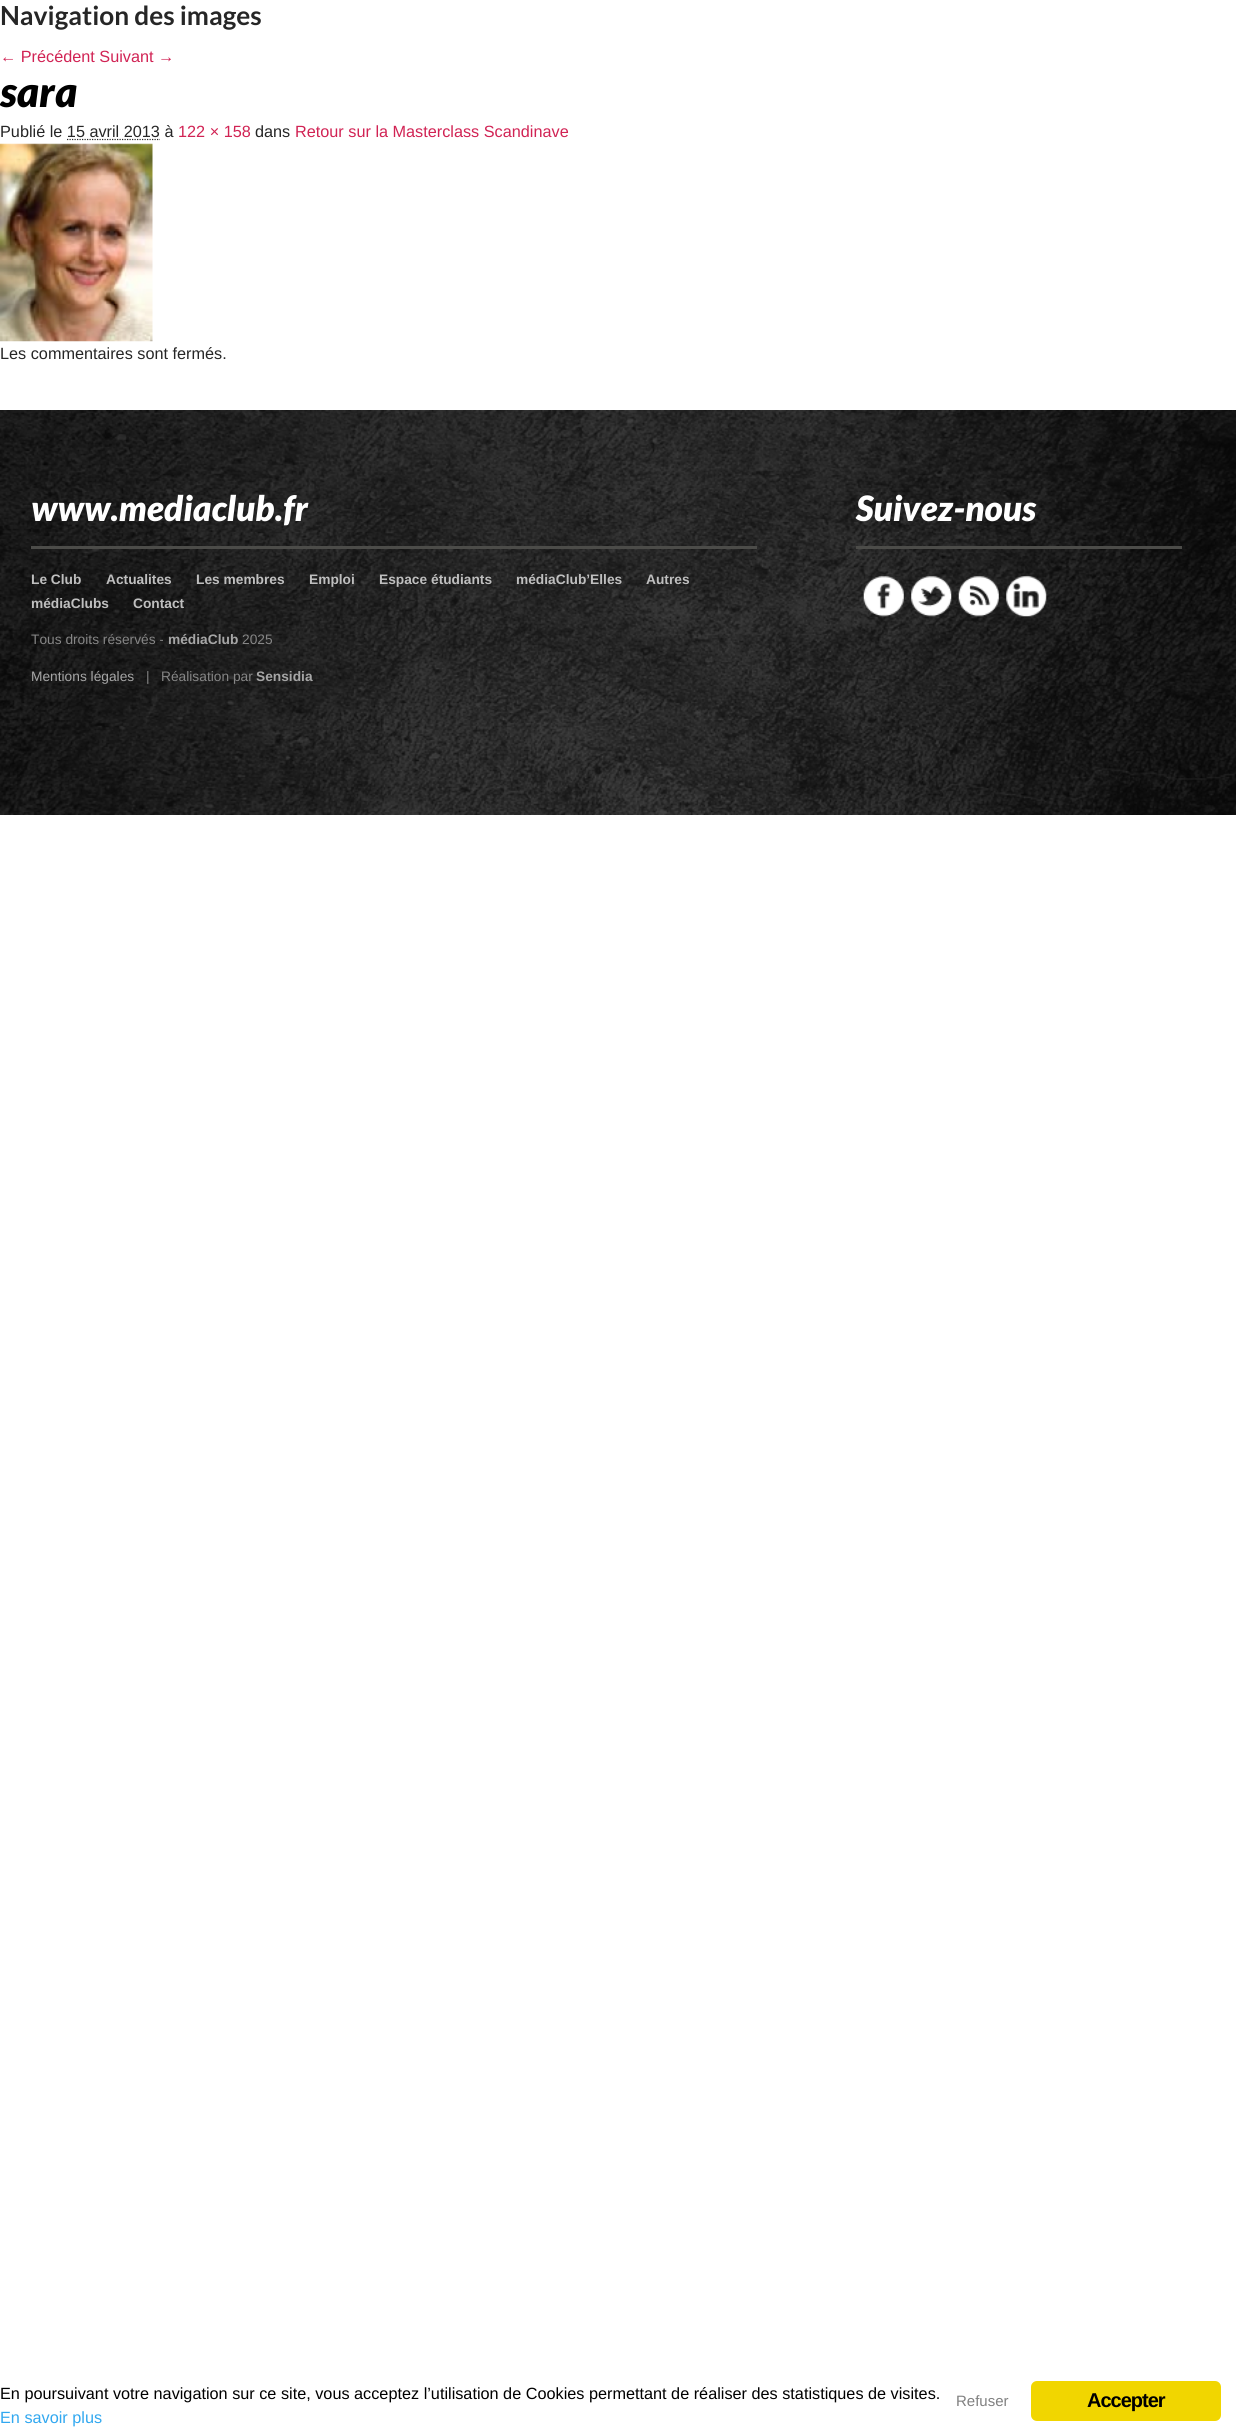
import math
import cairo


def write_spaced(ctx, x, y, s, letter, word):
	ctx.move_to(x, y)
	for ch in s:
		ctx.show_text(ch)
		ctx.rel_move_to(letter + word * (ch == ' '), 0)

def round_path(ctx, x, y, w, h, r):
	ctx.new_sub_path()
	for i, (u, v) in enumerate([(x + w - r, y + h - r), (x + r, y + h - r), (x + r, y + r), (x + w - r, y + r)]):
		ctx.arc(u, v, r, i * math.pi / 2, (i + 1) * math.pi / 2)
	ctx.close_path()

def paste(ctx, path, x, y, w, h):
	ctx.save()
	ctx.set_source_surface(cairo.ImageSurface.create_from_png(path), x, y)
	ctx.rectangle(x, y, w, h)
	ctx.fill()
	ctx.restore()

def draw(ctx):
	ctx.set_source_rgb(1, 1, 1)
	ctx.paint()
	ctx.select_font_face('Lato', cairo.FONT_SLANT_NORMAL, cairo.FONT_WEIGHT_BOLD)
	ctx.set_font_size(26.25)
	ctx.set_source_rgb(0.149, 0.149, 0.149)
	ctx.move_to(0, 25)
	ctx.show_text('Navigation des images')
	ctx.select_font_face('Liberation Sans')
	ctx.set_font_size(16.25)
	ctx.set_source_rgb(0.82, 0.137, 0.329)
	ctx.move_to(0, 62)
	ctx.show_text('← Précédent Suivant →')
	ctx.select_font_face('Lato Black', cairo.FONT_SLANT_ITALIC)
	ctx.set_font_size(42)
	ctx.set_source_rgb(0, 0, 0)
	ctx.move_to(0, 107)
	ctx.show_text('sara')
	ctx.select_font_face('Liberation Sans')
	ctx.set_font_size(16.25)
	ctx.set_source_rgb(0.149, 0.149, 0.149)
	ctx.move_to(0, 137)
	ctx.show_text('Publié le 15 avril 2013 à')
	ctx.set_source_rgb(0.82, 0.137, 0.329)
	ctx.move_to(178, 137)
	ctx.show_text('122 × 158')
	ctx.set_source_rgb(0.149, 0.149, 0.149)
	ctx.move_to(255, 137)
	ctx.show_text('dans')
	ctx.set_source_rgb(0.82, 0.137, 0.329)
	ctx.move_to(295, 137)
	ctx.show_text('Retour sur la Masterclass Scandinave')
	ctx.new_path()
	ctx.move_to(67, 139.5)
	ctx.line_to(160, 139.5)
	ctx.set_source_rgb(0.149, 0.149, 0.149)
	ctx.set_line_width(1.2)
	ctx.set_dash([1.25, 1.25])
	ctx.stroke()
	paste(ctx, 'media/1.png', 0, 143, 153, 199)
	ctx.move_to(0, 359)
	ctx.show_text('Les commentaires sont fermés.')
	paste(ctx, 'media/2.png', 0, 410, 1236, 405)
	ctx.set_source_rgb(0.298, 0.298, 0.286)
	ctx.rectangle(31, 546, 726, 3)
	ctx.fill()
	ctx.select_font_face('Lato Black', cairo.FONT_SLANT_ITALIC)
	ctx.set_font_size(35)
	ctx.set_source_rgb(1, 1, 1)
	ctx.move_to(31, 521)
	ctx.show_text('www.mediaclub.fr')
	ctx.select_font_face('Liberation Sans', cairo.FONT_SLANT_NORMAL, cairo.FONT_WEIGHT_BOLD)
	ctx.set_font_size(13.75)
	ctx.set_source_rgb(0.749, 0.749, 0.749)
	for x, y, s in [
		(31, 584, 'Le Club'),
		(106, 584, 'Actualites'),
		(196, 584, 'Les membres'),
		(309, 584, 'Emploi'),
		(379, 584, 'Espace étudiants'),
		(516, 584, 'médiaClub’Elles'),
		(646, 584, 'Autres'),
		(31, 608, 'médiaClubs'),
		(133, 608, 'Contact'),
	]:
		ctx.move_to(x, y)
		ctx.show_text(s)
	ctx.select_font_face('Liberation Sans')
	ctx.set_source_rgb(0.525, 0.525, 0.525)
	ctx.move_to(31, 644)
	ctx.show_text('Tous droits réservés -')
	ctx.select_font_face('Liberation Sans', cairo.FONT_SLANT_NORMAL, cairo.FONT_WEIGHT_BOLD)
	ctx.set_source_rgb(0.651, 0.651, 0.651)
	ctx.move_to(168, 644)
	ctx.show_text('médiaClub')
	ctx.select_font_face('Liberation Sans')
	ctx.set_source_rgb(0.525, 0.525, 0.525)
	ctx.move_to(242, 644)
	ctx.show_text('2025')
	ctx.set_source_rgb(0.651, 0.651, 0.651)
	ctx.move_to(31, 681)
	ctx.show_text('Mentions légales')
	ctx.set_source_rgb(0.525, 0.525, 0.525)
	ctx.move_to(146, 681)
	ctx.show_text('|   Réalisation par')
	ctx.select_font_face('Liberation Sans', cairo.FONT_SLANT_NORMAL, cairo.FONT_WEIGHT_BOLD)
	ctx.set_source_rgb(0.651, 0.651, 0.651)
	ctx.move_to(256, 681)
	ctx.show_text('Sensidia')
	ctx.set_source_rgb(0.298, 0.298, 0.286)
	ctx.rectangle(856, 546, 326, 3)
	ctx.fill()
	ctx.select_font_face('Lato Black', cairo.FONT_SLANT_ITALIC)
	ctx.set_font_size(35)
	ctx.set_source_rgb(1, 1, 1)
	ctx.move_to(856, 521)
	ctx.show_text('Suivez-nous')
	paste(ctx, 'media/3.png', 863, 576, 41, 41)
	paste(ctx, 'media/4.png', 911, 576, 41, 41)
	paste(ctx, 'media/5.png', 958, 576, 41, 41)
	paste(ctx, 'media/6.png', 1006, 576, 41, 41)
	ctx.select_font_face('Liberation Sans')
	ctx.set_font_size(16.25)
	ctx.set_source_rgb(0, 0, 0)
	ctx.move_to(0, 2399)
	ctx.show_text('En poursuivant votre navigation sur ce site, vous acceptez l’utilisation de Cookies permettant de réaliser des statistiques de visites.')
	ctx.set_source_rgb(0.192, 0.659, 0.941)
	ctx.move_to(0, 2423)
	ctx.show_text('En savoir plus')
	ctx.set_font_size(15)
	ctx.set_source_rgb(0.502, 0.502, 0.502)
	ctx.move_to(956, 2406)
	ctx.show_text('Refuser')
	ctx.set_source_rgb(0.945, 0.839, 0)
	round_path(ctx, 1031, 2381, 190, 40, 6)
	ctx.fill()
	ctx.select_font_face('Liberation Sans', cairo.FONT_SLANT_NORMAL, cairo.FONT_WEIGHT_BOLD)
	ctx.set_font_size(20)
	ctx.set_source_rgb(0, 0, 0)
	write_spaced(ctx, 1087, 2407, 'Accepter', -1, 0)


surface = cairo.ImageSurface(cairo.FORMAT_RGB24, 1236, 2429)
ctx = cairo.Context(surface)
options = cairo.FontOptions()
options.set_hint_metrics(cairo.HINT_METRICS_OFF)
options.set_hint_style(cairo.HINT_STYLE_NONE)
ctx.set_font_options(options)
ctx.set_miter_limit(4)
draw(ctx)
surface.write_to_png('image.png')
